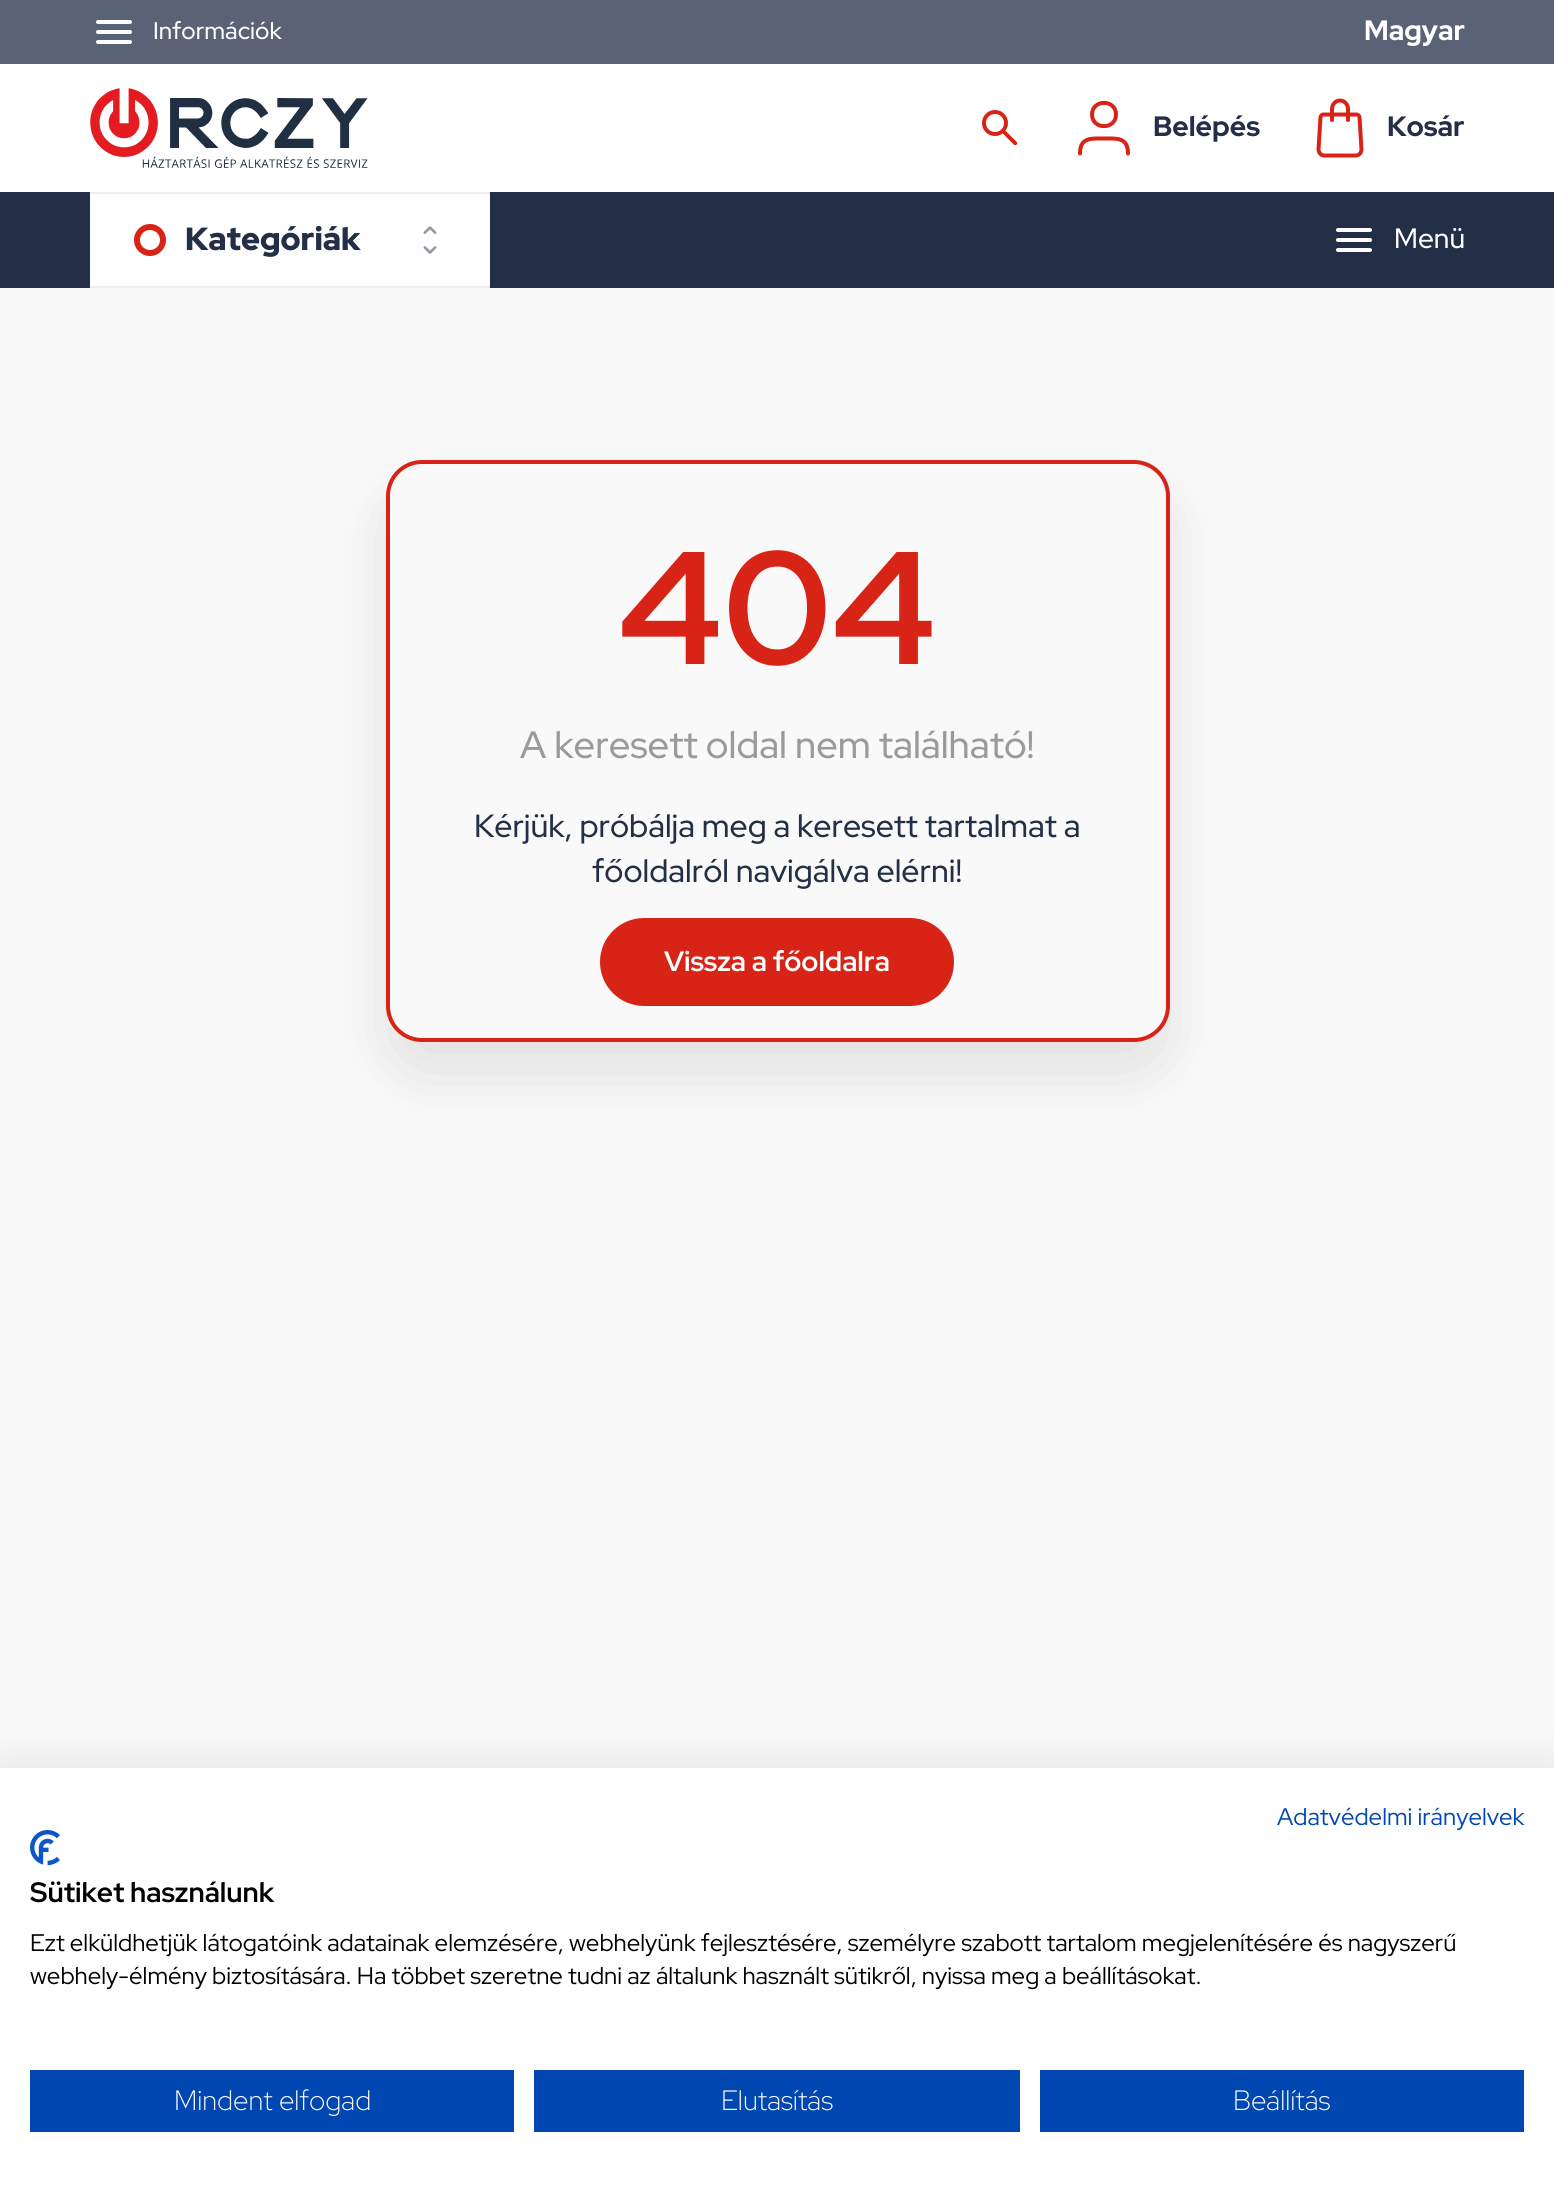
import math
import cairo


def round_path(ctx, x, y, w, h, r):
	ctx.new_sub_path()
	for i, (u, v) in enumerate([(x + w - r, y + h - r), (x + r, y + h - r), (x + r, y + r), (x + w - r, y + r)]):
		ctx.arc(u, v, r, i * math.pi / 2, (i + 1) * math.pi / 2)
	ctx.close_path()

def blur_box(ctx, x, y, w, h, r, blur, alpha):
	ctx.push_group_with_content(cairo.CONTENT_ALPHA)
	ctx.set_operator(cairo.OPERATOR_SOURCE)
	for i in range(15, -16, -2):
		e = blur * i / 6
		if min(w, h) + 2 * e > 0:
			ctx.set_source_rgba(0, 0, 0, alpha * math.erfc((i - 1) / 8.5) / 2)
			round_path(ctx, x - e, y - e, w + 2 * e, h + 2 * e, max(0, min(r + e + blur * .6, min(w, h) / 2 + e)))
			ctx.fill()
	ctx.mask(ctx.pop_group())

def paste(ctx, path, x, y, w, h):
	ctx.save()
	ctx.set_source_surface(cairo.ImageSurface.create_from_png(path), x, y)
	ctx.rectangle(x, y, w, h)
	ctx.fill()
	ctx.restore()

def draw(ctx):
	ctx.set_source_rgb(0.976, 0.976, 0.976)
	ctx.paint()
	ctx.set_source_rgb(1, 1, 1)
	ctx.rectangle(0, 64, 1554, 128)
	ctx.fill()
	ctx.set_source_rgb(0.353, 0.388, 0.459)
	ctx.rectangle(0, 0, 1554, 64)
	ctx.fill()
	paste(ctx, 'media/1.png', 96, 20, 36, 24)
	ctx.select_font_face('Red Hat Display Medium')
	ctx.set_font_size(24)
	ctx.set_source_rgb(1, 1, 1)
	ctx.move_to(153, 39)
	ctx.show_text('Információk')
	ctx.select_font_face('Red Hat Display ExtraBold')
	ctx.set_font_size(28)
	ctx.move_to(1364, 40)
	ctx.show_text('Magyar')
	paste(ctx, 'media/2.png', 90, 88, 278, 80)
	paste(ctx, 'media/3.png', 982, 110, 36, 36)
	ctx.new_path()
	ctx.move_to(1128, 153.5)
	ctx.curve_to(1128, 137, 1116.5, 138.5, 1104, 138.5)
	ctx.curve_to(1091.5, 138.5, 1080, 137, 1080, 153.5)
	ctx.move_to(1116, 114.5)
	ctx.curve_to(1116, 130, 1092, 130, 1092, 114.5)
	ctx.curve_to(1092, 99, 1116, 99, 1116, 114.5)
	ctx.close_path()
	ctx.set_source_rgb(0.847, 0.137, 0.09)
	ctx.set_line_width(4)
	ctx.set_line_cap(cairo.LINE_CAP_ROUND)
	ctx.set_line_join(cairo.LINE_JOIN_ROUND)
	ctx.stroke()
	ctx.set_source_rgb(0.137, 0.184, 0.278)
	ctx.move_to(1153, 136)
	ctx.show_text('Belépés')
	ctx.new_path()
	ctx.move_to(1348, 120)
	ctx.line_to(1348, 109)
	ctx.curve_to(1348, 104.5, 1344.5, 100.5, 1340, 100.5)
	ctx.curve_to(1335.5, 100.5, 1332, 104.5, 1332, 109)
	ctx.line_to(1332, 120)
	ctx.move_to(1356.5, 114.5)
	ctx.line_to(1323.5, 114.5)
	ctx.curve_to(1322, 114.5, 1321, 115.5, 1320.5, 117)
	ctx.line_to(1318.5, 149.5)
	ctx.curve_to(1318.5, 152.5, 1321, 155.5, 1324, 155.5)
	ctx.line_to(1356, 155.5)
	ctx.curve_to(1359, 155.5, 1361.5, 152.5, 1361.5, 149.5)
	ctx.line_to(1359.5, 117)
	ctx.curve_to(1359, 115.5, 1358, 114.5, 1356.5, 114.5)
	ctx.close_path()
	ctx.set_source_rgb(0.847, 0.137, 0.09)
	ctx.stroke()
	ctx.set_source_rgb(0.137, 0.184, 0.278)
	ctx.move_to(1387, 136)
	ctx.show_text('Kosár')
	ctx.rectangle(0, 192, 1554, 96)
	ctx.fill()
	ctx.set_source_rgb(0.996, 0.996, 0.996)
	ctx.rectangle(90, 194, 400, 92)
	ctx.fill()
	ctx.set_source_rgb(0.933, 0.933, 0.933)
	ctx.rectangle(90, 192, 400, 2)
	ctx.rectangle(90, 286, 400, 2)
	ctx.fill()
	paste(ctx, 'media/4.png', 134, 224, 32, 32)
	ctx.select_font_face('Red Hat Display Black')
	ctx.set_font_size(32)
	ctx.set_source_rgb(0.137, 0.184, 0.278)
	ctx.move_to(185, 250)
	ctx.show_text('Kategóriák')
	paste(ctx, 'media/5.png', 423, 226, 14, 28)
	paste(ctx, 'media/6.png', 1336, 228, 36, 24)
	ctx.select_font_face('Red Hat Display Medium')
	ctx.set_font_size(28)
	ctx.set_source_rgb(1, 1, 1)
	ctx.move_to(1394, 248)
	ctx.show_text('Menü')
	ctx.save()
	ctx.set_fill_rule(cairo.FILL_RULE_EVEN_ODD)
	ctx.new_path()
	ctx.move_to(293, 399)
	ctx.line_to(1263, 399)
	ctx.line_to(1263, 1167)
	ctx.line_to(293, 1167)
	ctx.close_path()
	ctx.move_to(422, 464)
	ctx.line_to(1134, 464)
	ctx.curve_to(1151.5, 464, 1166, 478.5, 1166, 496)
	ctx.line_to(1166, 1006)
	ctx.curve_to(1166, 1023.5, 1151.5, 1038, 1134, 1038)
	ctx.line_to(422, 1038)
	ctx.curve_to(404.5, 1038, 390, 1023.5, 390, 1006)
	ctx.line_to(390, 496)
	ctx.curve_to(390, 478.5, 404.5, 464, 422, 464)
	ctx.close_path()
	ctx.clip()
	ctx.set_source_rgb(0.314, 0.314, 0.314)
	blur_box(ctx, 390, 496, 776, 574, 32, 32, 0.16)
	ctx.restore()
	round_path(ctx, 388, 462, 780, 578, 34)
	ctx.set_source_rgb(0.847, 0.137, 0.09)
	ctx.set_line_cap(cairo.LINE_CAP_BUTT)
	ctx.set_line_join(cairo.LINE_JOIN_MITER)
	ctx.stroke()
	ctx.select_font_face('Red Hat Display', cairo.FONT_SLANT_NORMAL, cairo.FONT_WEIGHT_BOLD)
	ctx.set_font_size(160)
	ctx.move_to(618, 664)
	ctx.show_text('404')
	ctx.select_font_face('Red Hat Display Medium')
	ctx.set_font_size(38)
	ctx.set_source_rgb(0.604, 0.604, 0.604)
	ctx.move_to(520, 758)
	ctx.show_text('A keresett oldal nem található!')
	ctx.set_font_size(32)
	ctx.set_source_rgb(0.137, 0.184, 0.278)
	ctx.move_to(474, 837)
	ctx.show_text('Kérjük, próbálja meg a keresett tartalmat a')
	ctx.move_to(592, 882)
	ctx.show_text('főoldalról navigálva elérni!')
	ctx.set_source_rgb(0.847, 0.137, 0.09)
	round_path(ctx, 600, 918, 354, 88, 44)
	ctx.fill()
	ctx.select_font_face('Red Hat Display', cairo.FONT_SLANT_NORMAL, cairo.FONT_WEIGHT_BOLD)
	ctx.set_font_size(28)
	ctx.set_source_rgb(1, 1, 1)
	ctx.move_to(664, 971)
	ctx.show_text('Vissza a főoldalra')
	ctx.set_source_rgb(0, 0, 0)
	blur_box(ctx, 0, 1768, 1554, 418, 0, 24, 0.1)
	ctx.set_source_rgb(1, 1, 1)
	ctx.rectangle(0, 1768, 1554, 418)
	ctx.fill()
	ctx.select_font_face('Red Hat Display')
	ctx.set_font_size(24)
	ctx.set_source_rgb(0, 0.278, 0.698)
	ctx.move_to(1277, 1825)
	ctx.show_text('Adatvédelmi irányelvek')
	paste(ctx, 'media/7.png', 30, 1830, 30, 36)
	ctx.select_font_face('Red Hat Display', cairo.FONT_SLANT_NORMAL, cairo.FONT_WEIGHT_BOLD)
	ctx.set_font_size(28)
	ctx.set_source_rgb(0, 0, 0)
	ctx.move_to(30, 1902)
	ctx.show_text('Sütiket használunk')
	ctx.select_font_face('Red Hat Display')
	ctx.set_font_size(24)
	ctx.move_to(30, 1951)
	ctx.show_text('Ezt elküldhetjük látogatóink adatainak elemzésére, webhelyünk fejlesztésére, személyre szabott tartalom megjelenítésére és nagyszerű')
	ctx.move_to(30, 1984)
	ctx.show_text('webhely-élmény biztosítására. Ha többet szeretne tudni az általunk használt sütikről, nyissa meg a beállításokat.')
	ctx.set_source_rgb(0, 0.278, 0.698)
	ctx.rectangle(30, 2070, 484, 62)
	ctx.fill()
	ctx.select_font_face('Red Hat Display Light')
	ctx.set_font_size(28)
	ctx.set_source_rgb(1, 1, 1)
	ctx.move_to(174, 2110)
	ctx.show_text('Mindent elfogad')
	ctx.set_source_rgb(0, 0.278, 0.698)
	ctx.rectangle(534, 2070, 486, 62)
	ctx.fill()
	ctx.set_source_rgb(1, 1, 1)
	ctx.move_to(721, 2110)
	ctx.show_text('Elutasítás')
	ctx.set_source_rgb(0, 0.278, 0.698)
	ctx.rectangle(1040, 2070, 484, 62)
	ctx.fill()
	ctx.set_source_rgb(1, 1, 1)
	ctx.move_to(1233, 2110)
	ctx.show_text('Beállítás')


surface = cairo.ImageSurface(cairo.FORMAT_RGB24, 1554, 2186)
ctx = cairo.Context(surface)
options = cairo.FontOptions()
options.set_hint_metrics(cairo.HINT_METRICS_OFF)
options.set_hint_style(cairo.HINT_STYLE_NONE)
ctx.set_font_options(options)
ctx.set_miter_limit(4)
draw(ctx)
surface.write_to_png('image.png')
